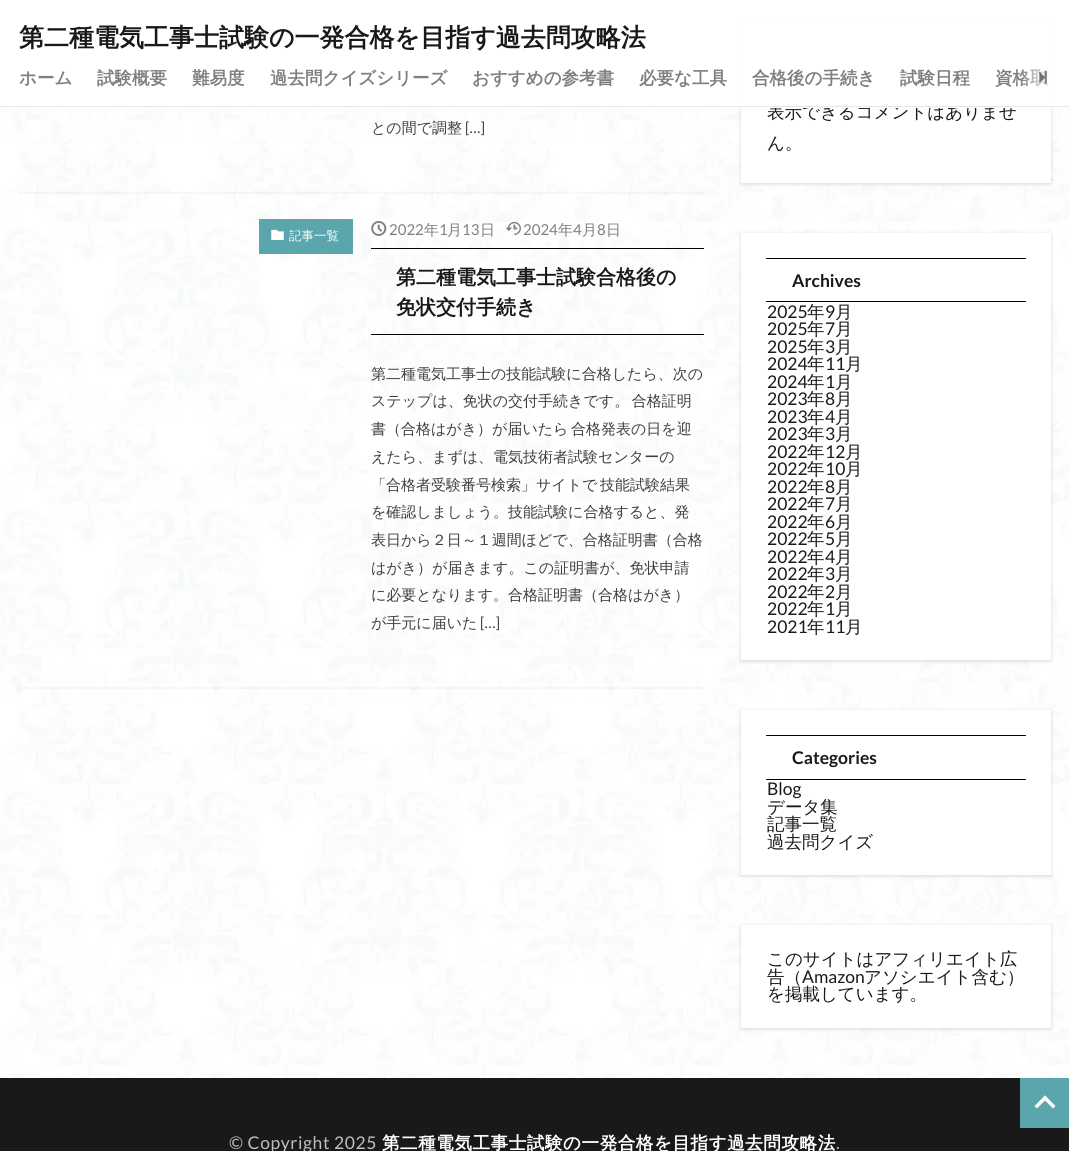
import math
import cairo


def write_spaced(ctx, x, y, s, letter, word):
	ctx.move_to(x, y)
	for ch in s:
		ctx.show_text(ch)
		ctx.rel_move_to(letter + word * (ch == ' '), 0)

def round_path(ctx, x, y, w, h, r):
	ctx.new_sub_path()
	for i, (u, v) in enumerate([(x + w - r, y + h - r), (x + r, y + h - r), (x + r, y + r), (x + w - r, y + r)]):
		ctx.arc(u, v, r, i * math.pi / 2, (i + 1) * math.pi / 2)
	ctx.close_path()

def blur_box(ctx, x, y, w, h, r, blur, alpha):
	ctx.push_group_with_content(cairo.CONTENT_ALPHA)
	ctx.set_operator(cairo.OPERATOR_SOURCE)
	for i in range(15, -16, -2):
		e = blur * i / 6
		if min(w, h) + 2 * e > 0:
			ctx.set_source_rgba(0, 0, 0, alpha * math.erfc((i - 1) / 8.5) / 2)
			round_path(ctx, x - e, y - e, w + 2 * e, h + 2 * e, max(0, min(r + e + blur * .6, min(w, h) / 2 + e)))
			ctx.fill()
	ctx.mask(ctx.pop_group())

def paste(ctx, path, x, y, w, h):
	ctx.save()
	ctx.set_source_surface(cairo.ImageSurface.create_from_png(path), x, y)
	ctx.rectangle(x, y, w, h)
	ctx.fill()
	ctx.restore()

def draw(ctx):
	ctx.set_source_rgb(1, 1, 1)
	ctx.paint()
	paste(ctx, 'media/1.png', 0, 108, 1069, 970)
	ctx.set_source_rgb(0, 0, 0)
	blur_box(ctx, 741, 26, 310, 158, 0, 2, 0.15)
	ctx.set_source_rgb(1, 1, 1)
	ctx.rectangle(741, 108, 310, 75)
	ctx.fill()
	ctx.select_font_face('WenQuanYi Zen Hei Medium')
	ctx.set_font_size(17.5)
	ctx.set_source_rgb(0.098, 0.098, 0.098)
	ctx.move_to(767, 118)
	ctx.show_text('表示できるコメントはありませ')
	ctx.set_source_rgb(1, 1, 1)
	ctx.rectangle(738, 23, 316, 85)
	ctx.fill()
	ctx.set_source_rgb(0.902, 0.902, 0.902)
	ctx.rectangle(0, 106, 1069, 1)
	ctx.fill()
	ctx.select_font_face('WenQuanYi Zen Hei', cairo.FONT_SLANT_NORMAL, cairo.FONT_WEIGHT_BOLD)
	ctx.set_font_size(25)
	ctx.set_source_rgb(0.098, 0.098, 0.098)
	ctx.move_to(19, 46)
	ctx.show_text('第二種電気工事士試験の一発合格を目指す過去問攻略法')
	ctx.set_font_size(17.5)
	ctx.set_source_rgb(0.498, 0.498, 0.498)
	for x, y, s in [
		(19, 84, 'ホーム'),
		(97, 84, '試験概要'),
		(192, 84, '難易度'),
		(270, 84, '過去問クイズシリーズ'),
		(472, 84, 'おすすめの参考書'),
		(639, 84, '必要な工具'),
		(752, 84, '合格後の手続き'),
		(900, 84, '試験日程'),
		(995, 84, '資格取'),
	]:
		ctx.move_to(x, y)
		ctx.show_text(s)
	gradient = cairo.LinearGradient(1020, 63, 1051, 63)
	gradient.add_color_stop_rgba(0, 1, 1, 1, 0)
	gradient.add_color_stop_rgba(1, 1, 1, 1, 1)
	ctx.set_source(gradient)
	ctx.rectangle(1021, 70, 26, 17)
	ctx.fill()
	paste(ctx, 'media/2.png', 1039, 70, 8, 14)
	ctx.new_path()
	ctx.move_to(19, 193)
	ctx.line_to(704, 193)
	ctx.set_source_rgba(0, 0, 0, 0.1)
	ctx.set_line_width(1.2)
	ctx.set_dash([1.25, 1.25])
	ctx.stroke()
	ctx.select_font_face('WenQuanYi Zen Hei Medium')
	ctx.set_font_size(15)
	ctx.set_source_rgb(0.247, 0.247, 0.247)
	ctx.move_to(371, 133)
	ctx.show_text('との間で調整')
	ctx.select_font_face('Lato')
	ctx.move_to(465, 133)
	ctx.show_text('[…]')
	ctx.new_path()
	ctx.move_to(19, 688)
	ctx.line_to(704, 688)
	ctx.set_source_rgba(0, 0, 0, 0.1)
	ctx.stroke()
	ctx.set_source_rgb(0.357, 0.647, 0.678)
	ctx.rectangle(259, 219, 94, 35)
	ctx.fill()
	paste(ctx, 'media/3.png', 271, 229, 13, 11)
	ctx.select_font_face('WenQuanYi Zen Hei Medium')
	ctx.set_font_size(12.5)
	ctx.set_source_rgb(1, 1, 1)
	ctx.move_to(289, 240)
	ctx.show_text('記事一覧')
	paste(ctx, 'media/4.png', 371, 221, 16, 15)
	ctx.select_font_face('Lato')
	ctx.set_font_size(15)
	ctx.set_source_rgb(0.498, 0.498, 0.498)
	ctx.move_to(389, 235)
	ctx.show_text('2022')
	ctx.select_font_face('WenQuanYi Zen Hei Medium')
	ctx.move_to(424, 235)
	ctx.show_text('年')
	ctx.select_font_face('Lato')
	ctx.move_to(439, 235)
	ctx.show_text('1')
	ctx.select_font_face('WenQuanYi Zen Hei Medium')
	ctx.move_to(447, 235)
	ctx.show_text('月')
	ctx.select_font_face('Lato')
	ctx.move_to(462, 235)
	ctx.show_text('13')
	ctx.select_font_face('WenQuanYi Zen Hei Medium')
	ctx.move_to(480, 235)
	ctx.show_text('日')
	paste(ctx, 'media/5.png', 505, 221, 16, 14)
	ctx.select_font_face('Lato')
	ctx.move_to(523, 235)
	ctx.show_text('2024')
	ctx.select_font_face('WenQuanYi Zen Hei Medium')
	ctx.move_to(558, 235)
	ctx.show_text('年')
	ctx.select_font_face('Lato')
	ctx.move_to(573, 235)
	ctx.show_text('4')
	ctx.select_font_face('WenQuanYi Zen Hei Medium')
	ctx.move_to(582, 235)
	ctx.show_text('月')
	ctx.select_font_face('Lato')
	ctx.move_to(597, 235)
	ctx.show_text('8')
	ctx.select_font_face('WenQuanYi Zen Hei Medium')
	ctx.move_to(606, 235)
	ctx.show_text('日')
	ctx.set_source_rgb(0, 0, 0)
	ctx.rectangle(371, 248, 333, 1)
	ctx.fill()
	ctx.rectangle(371, 334, 333, 1)
	ctx.fill()
	ctx.select_font_face('WenQuanYi Zen Hei', cairo.FONT_SLANT_NORMAL, cairo.FONT_WEIGHT_BOLD)
	ctx.set_font_size(20)
	ctx.set_source_rgb(0.098, 0.098, 0.098)
	ctx.move_to(396, 284)
	ctx.show_text('第二種電気工事士試験合格後の')
	ctx.move_to(396, 314)
	ctx.show_text('免状交付手続き')
	ctx.select_font_face('WenQuanYi Zen Hei Medium')
	ctx.set_font_size(15)
	ctx.set_source_rgb(0.247, 0.247, 0.247)
	ctx.move_to(371, 379)
	ctx.show_text('第二種電気工事士の技能試験に合格したら、次の')
	write_spaced(ctx, 371, 406, 'ステップは、免状の交付手続きです。 合格証明', 0, -2)
	write_spaced(ctx, 371, 434, '書（合格はがき）が届いたら 合格発表の日を迎', 0, -2)
	ctx.move_to(371, 462)
	ctx.show_text('えたら、まずは、電気技術者試験センターの')
	write_spaced(ctx, 371, 490, '「合格者受験番号検索」サイトで 技能試験結果', 0, -2)
	for x, y, s in [
		(371, 517, 'を確認しましょう。技能試験に合格すると、発'),
		(371, 545, '表日から２日～１週間ほどで、合格証明書（合格'),
		(371, 573, 'はがき）が届きます。この証明書が、免状申請'),
		(371, 600, 'に必要となります。合格証明書（合格はがき）'),
		(371, 628, 'が手元に届いた'),
	]:
		ctx.move_to(x, y)
		ctx.show_text(s)
	ctx.select_font_face('Lato')
	ctx.move_to(480, 628)
	ctx.show_text('[…]')
	ctx.select_font_face('WenQuanYi Zen Hei Medium')
	ctx.set_font_size(17.5)
	ctx.set_source_rgb(0.098, 0.098, 0.098)
	ctx.move_to(767, 149)
	ctx.show_text('ん。')
	ctx.set_source_rgb(0, 0, 0)
	blur_box(ctx, 741, 234, 310, 427, 0, 2, 0.15)
	ctx.set_source_rgb(1, 1, 1)
	ctx.rectangle(741, 233, 310, 427)
	ctx.fill()
	ctx.set_source_rgb(0, 0, 0)
	ctx.rectangle(766, 258, 260, 1)
	ctx.rectangle(766, 301, 260, 1)
	ctx.fill()
	ctx.select_font_face('Lato', cairo.FONT_SLANT_NORMAL, cairo.FONT_WEIGHT_BOLD)
	ctx.set_source_rgb(0.098, 0.098, 0.098)
	ctx.move_to(792, 287)
	ctx.show_text('Archives')
	ctx.select_font_face('Lato')
	ctx.move_to(767, 318)
	ctx.show_text('2025')
	ctx.select_font_face('WenQuanYi Zen Hei Medium')
	ctx.move_to(807, 318)
	ctx.show_text('年')
	ctx.select_font_face('Lato')
	ctx.move_to(825, 318)
	ctx.show_text('9')
	ctx.select_font_face('WenQuanYi Zen Hei Medium')
	ctx.move_to(835, 318)
	ctx.show_text('月')
	ctx.select_font_face('Lato')
	ctx.move_to(767, 335)
	ctx.show_text('2025')
	ctx.select_font_face('WenQuanYi Zen Hei Medium')
	ctx.move_to(807, 335)
	ctx.show_text('年')
	ctx.select_font_face('Lato')
	ctx.move_to(825, 335)
	ctx.show_text('7')
	ctx.select_font_face('WenQuanYi Zen Hei Medium')
	ctx.move_to(835, 335)
	ctx.show_text('月')
	ctx.select_font_face('Lato')
	ctx.move_to(767, 353)
	ctx.show_text('2025')
	ctx.select_font_face('WenQuanYi Zen Hei Medium')
	ctx.move_to(807, 353)
	ctx.show_text('年')
	ctx.select_font_face('Lato')
	ctx.move_to(825, 353)
	ctx.show_text('3')
	ctx.select_font_face('WenQuanYi Zen Hei Medium')
	ctx.move_to(835, 353)
	ctx.show_text('月')
	ctx.select_font_face('Lato')
	ctx.move_to(767, 370)
	ctx.show_text('2024')
	ctx.select_font_face('WenQuanYi Zen Hei Medium')
	ctx.move_to(807, 370)
	ctx.show_text('年')
	ctx.select_font_face('Lato')
	ctx.move_to(825, 370)
	ctx.show_text('11')
	ctx.select_font_face('WenQuanYi Zen Hei Medium')
	ctx.move_to(845, 370)
	ctx.show_text('月')
	ctx.select_font_face('Lato')
	ctx.move_to(767, 388)
	ctx.show_text('2024')
	ctx.select_font_face('WenQuanYi Zen Hei Medium')
	ctx.move_to(807, 388)
	ctx.show_text('年')
	ctx.select_font_face('Lato')
	ctx.move_to(825, 388)
	ctx.show_text('1')
	ctx.select_font_face('WenQuanYi Zen Hei Medium')
	ctx.move_to(835, 388)
	ctx.show_text('月')
	ctx.select_font_face('Lato')
	ctx.move_to(767, 405)
	ctx.show_text('2023')
	ctx.select_font_face('WenQuanYi Zen Hei Medium')
	ctx.move_to(807, 405)
	ctx.show_text('年')
	ctx.select_font_face('Lato')
	ctx.move_to(825, 405)
	ctx.show_text('8')
	ctx.select_font_face('WenQuanYi Zen Hei Medium')
	ctx.move_to(835, 405)
	ctx.show_text('月')
	ctx.select_font_face('Lato')
	ctx.move_to(767, 423)
	ctx.show_text('2023')
	ctx.select_font_face('WenQuanYi Zen Hei Medium')
	ctx.move_to(807, 423)
	ctx.show_text('年')
	ctx.select_font_face('Lato')
	ctx.move_to(825, 423)
	ctx.show_text('4')
	ctx.select_font_face('WenQuanYi Zen Hei Medium')
	ctx.move_to(835, 423)
	ctx.show_text('月')
	ctx.select_font_face('Lato')
	ctx.move_to(767, 440)
	ctx.show_text('2023')
	ctx.select_font_face('WenQuanYi Zen Hei Medium')
	ctx.move_to(807, 440)
	ctx.show_text('年')
	ctx.select_font_face('Lato')
	ctx.move_to(825, 440)
	ctx.show_text('3')
	ctx.select_font_face('WenQuanYi Zen Hei Medium')
	ctx.move_to(835, 440)
	ctx.show_text('月')
	ctx.select_font_face('Lato')
	ctx.move_to(767, 458)
	ctx.show_text('2022')
	ctx.select_font_face('WenQuanYi Zen Hei Medium')
	ctx.move_to(807, 458)
	ctx.show_text('年')
	ctx.select_font_face('Lato')
	ctx.move_to(825, 458)
	ctx.show_text('12')
	ctx.select_font_face('WenQuanYi Zen Hei Medium')
	ctx.move_to(845, 458)
	ctx.show_text('月')
	ctx.select_font_face('Lato')
	ctx.move_to(767, 475)
	ctx.show_text('2022')
	ctx.select_font_face('WenQuanYi Zen Hei Medium')
	ctx.move_to(807, 475)
	ctx.show_text('年')
	ctx.select_font_face('Lato')
	ctx.move_to(825, 475)
	ctx.show_text('10')
	ctx.select_font_face('WenQuanYi Zen Hei Medium')
	ctx.move_to(845, 475)
	ctx.show_text('月')
	ctx.select_font_face('Lato')
	ctx.move_to(767, 493)
	ctx.show_text('2022')
	ctx.select_font_face('WenQuanYi Zen Hei Medium')
	ctx.move_to(807, 493)
	ctx.show_text('年')
	ctx.select_font_face('Lato')
	ctx.move_to(825, 493)
	ctx.show_text('8')
	ctx.select_font_face('WenQuanYi Zen Hei Medium')
	ctx.move_to(835, 493)
	ctx.show_text('月')
	ctx.select_font_face('Lato')
	ctx.move_to(767, 510)
	ctx.show_text('2022')
	ctx.select_font_face('WenQuanYi Zen Hei Medium')
	ctx.move_to(807, 510)
	ctx.show_text('年')
	ctx.select_font_face('Lato')
	ctx.move_to(825, 510)
	ctx.show_text('7')
	ctx.select_font_face('WenQuanYi Zen Hei Medium')
	ctx.move_to(835, 510)
	ctx.show_text('月')
	ctx.select_font_face('Lato')
	ctx.move_to(767, 528)
	ctx.show_text('2022')
	ctx.select_font_face('WenQuanYi Zen Hei Medium')
	ctx.move_to(807, 528)
	ctx.show_text('年')
	ctx.select_font_face('Lato')
	ctx.move_to(825, 528)
	ctx.show_text('6')
	ctx.select_font_face('WenQuanYi Zen Hei Medium')
	ctx.move_to(835, 528)
	ctx.show_text('月')
	ctx.select_font_face('Lato')
	ctx.move_to(767, 545)
	ctx.show_text('2022')
	ctx.select_font_face('WenQuanYi Zen Hei Medium')
	ctx.move_to(807, 545)
	ctx.show_text('年')
	ctx.select_font_face('Lato')
	ctx.move_to(825, 545)
	ctx.show_text('5')
	ctx.select_font_face('WenQuanYi Zen Hei Medium')
	ctx.move_to(835, 545)
	ctx.show_text('月')
	ctx.select_font_face('Lato')
	ctx.move_to(767, 563)
	ctx.show_text('2022')
	ctx.select_font_face('WenQuanYi Zen Hei Medium')
	ctx.move_to(807, 563)
	ctx.show_text('年')
	ctx.select_font_face('Lato')
	ctx.move_to(825, 563)
	ctx.show_text('4')
	ctx.select_font_face('WenQuanYi Zen Hei Medium')
	ctx.move_to(835, 563)
	ctx.show_text('月')
	ctx.select_font_face('Lato')
	ctx.move_to(767, 580)
	ctx.show_text('2022')
	ctx.select_font_face('WenQuanYi Zen Hei Medium')
	ctx.move_to(807, 580)
	ctx.show_text('年')
	ctx.select_font_face('Lato')
	ctx.move_to(825, 580)
	ctx.show_text('3')
	ctx.select_font_face('WenQuanYi Zen Hei Medium')
	ctx.move_to(835, 580)
	ctx.show_text('月')
	ctx.select_font_face('Lato')
	ctx.move_to(767, 598)
	ctx.show_text('2022')
	ctx.select_font_face('WenQuanYi Zen Hei Medium')
	ctx.move_to(807, 598)
	ctx.show_text('年')
	ctx.select_font_face('Lato')
	ctx.move_to(825, 598)
	ctx.show_text('2')
	ctx.select_font_face('WenQuanYi Zen Hei Medium')
	ctx.move_to(835, 598)
	ctx.show_text('月')
	ctx.select_font_face('Lato')
	ctx.move_to(767, 615)
	ctx.show_text('2022')
	ctx.select_font_face('WenQuanYi Zen Hei Medium')
	ctx.move_to(807, 615)
	ctx.show_text('年')
	ctx.select_font_face('Lato')
	ctx.move_to(825, 615)
	ctx.show_text('1')
	ctx.select_font_face('WenQuanYi Zen Hei Medium')
	ctx.move_to(835, 615)
	ctx.show_text('月')
	ctx.select_font_face('Lato')
	ctx.move_to(767, 633)
	ctx.show_text('2021')
	ctx.select_font_face('WenQuanYi Zen Hei Medium')
	ctx.move_to(807, 633)
	ctx.show_text('年')
	ctx.select_font_face('Lato')
	ctx.move_to(825, 633)
	ctx.show_text('11')
	ctx.select_font_face('WenQuanYi Zen Hei Medium')
	ctx.move_to(845, 633)
	ctx.show_text('月')
	ctx.set_source_rgb(0, 0, 0)
	blur_box(ctx, 741, 711, 310, 165, 0, 2, 0.15)
	ctx.set_source_rgb(1, 1, 1)
	ctx.rectangle(741, 710, 310, 165)
	ctx.fill()
	ctx.set_source_rgb(0, 0, 0)
	ctx.rectangle(766, 735, 260, 1)
	ctx.rectangle(766, 779, 260, 1)
	ctx.fill()
	ctx.select_font_face('Lato', cairo.FONT_SLANT_NORMAL, cairo.FONT_WEIGHT_BOLD)
	ctx.set_source_rgb(0.098, 0.098, 0.098)
	ctx.move_to(792, 764)
	ctx.show_text('Categories')
	ctx.select_font_face('Lato')
	ctx.move_to(767, 795)
	ctx.show_text('Blog')
	ctx.select_font_face('WenQuanYi Zen Hei Medium')
	for x, y, s in [
		(767, 813, 'データ集'),
		(767, 830, '記事一覧'),
		(767, 848, '過去問クイズ'),
	]:
		ctx.move_to(x, y)
		ctx.show_text(s)
	ctx.set_source_rgb(0, 0, 0)
	blur_box(ctx, 741, 926, 310, 103, 0, 2, 0.15)
	ctx.set_source_rgb(1, 1, 1)
	ctx.rectangle(741, 925, 310, 103)
	ctx.fill()
	ctx.set_source_rgb(0.098, 0.098, 0.098)
	ctx.move_to(767, 965)
	ctx.show_text('このサイトはアフィリエイト広')
	ctx.move_to(767, 983)
	ctx.show_text('告（')
	ctx.select_font_face('Lato')
	ctx.move_to(802, 983)
	ctx.show_text('Amazon')
	ctx.select_font_face('WenQuanYi Zen Hei Medium')
	ctx.move_to(864, 983)
	ctx.show_text('アソシエイト含む）')
	ctx.move_to(767, 1000)
	ctx.show_text('を掲載しています。')
	ctx.rectangle(0, 1078, 1069, 73)
	ctx.fill()
	ctx.set_source_rgb(0.357, 0.647, 0.678)
	ctx.rectangle(1020, 1078, 49, 50)
	ctx.fill()
	ctx.set_source_rgb(1, 1, 1)
	ctx.new_path()
	ctx.move_to(1034.5, 1106)
	ctx.line_to(1045, 1095.5)
	ctx.line_to(1047.5, 1098)
	ctx.line_to(1037, 1108.5)
	ctx.close_path()
	ctx.fill()
	ctx.new_path()
	ctx.move_to(1042.5, 1098)
	ctx.line_to(1045, 1095.5)
	ctx.line_to(1055.5, 1106)
	ctx.line_to(1053, 1108.5)
	ctx.close_path()
	ctx.fill()
	ctx.select_font_face('Lato')
	ctx.set_source_rgb(0.749, 0.749, 0.749)
	write_spaced(ctx, 229, 1149, '© Copyright 2025', 0.6, 0)
	ctx.select_font_face('WenQuanYi Zen Hei', cairo.FONT_SLANT_NORMAL, cairo.FONT_WEIGHT_BOLD)
	ctx.set_source_rgb(1, 1, 1)
	write_spaced(ctx, 382, 1149, '第二種電気工事士試験の一発合格を目指す過去問攻略法', 0.6, 0)
	ctx.select_font_face('Lato')
	ctx.set_source_rgb(0.749, 0.749, 0.749)
	write_spaced(ctx, 836, 1149, '.', 0.6, 0)


surface = cairo.ImageSurface(cairo.FORMAT_RGB24, 1069, 1151)
ctx = cairo.Context(surface)
options = cairo.FontOptions()
options.set_hint_metrics(cairo.HINT_METRICS_OFF)
options.set_hint_style(cairo.HINT_STYLE_NONE)
ctx.set_font_options(options)
ctx.set_miter_limit(4)
draw(ctx)
surface.write_to_png('image.png')
